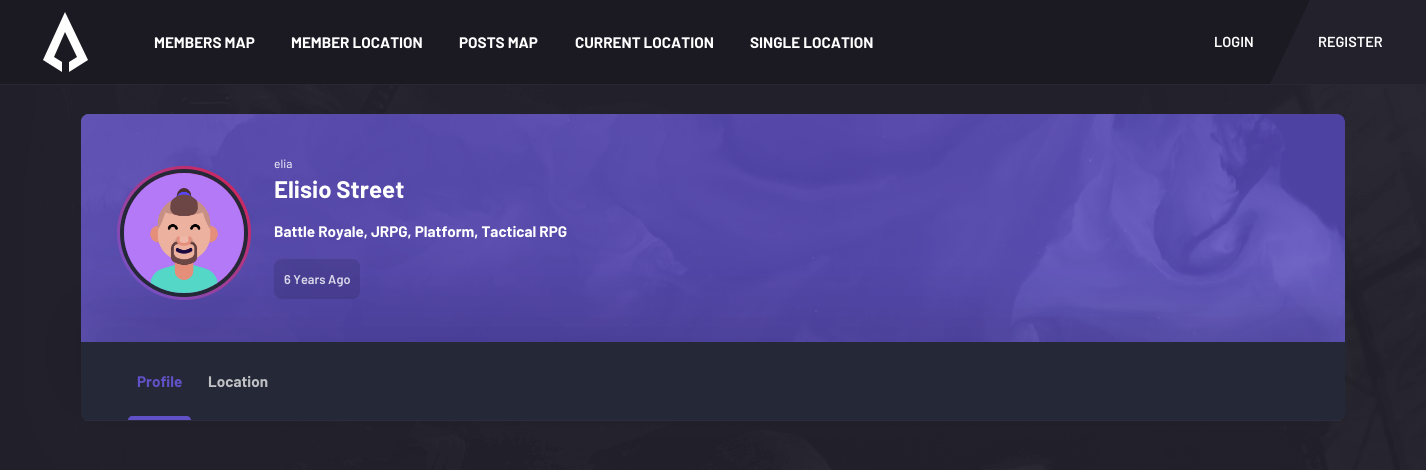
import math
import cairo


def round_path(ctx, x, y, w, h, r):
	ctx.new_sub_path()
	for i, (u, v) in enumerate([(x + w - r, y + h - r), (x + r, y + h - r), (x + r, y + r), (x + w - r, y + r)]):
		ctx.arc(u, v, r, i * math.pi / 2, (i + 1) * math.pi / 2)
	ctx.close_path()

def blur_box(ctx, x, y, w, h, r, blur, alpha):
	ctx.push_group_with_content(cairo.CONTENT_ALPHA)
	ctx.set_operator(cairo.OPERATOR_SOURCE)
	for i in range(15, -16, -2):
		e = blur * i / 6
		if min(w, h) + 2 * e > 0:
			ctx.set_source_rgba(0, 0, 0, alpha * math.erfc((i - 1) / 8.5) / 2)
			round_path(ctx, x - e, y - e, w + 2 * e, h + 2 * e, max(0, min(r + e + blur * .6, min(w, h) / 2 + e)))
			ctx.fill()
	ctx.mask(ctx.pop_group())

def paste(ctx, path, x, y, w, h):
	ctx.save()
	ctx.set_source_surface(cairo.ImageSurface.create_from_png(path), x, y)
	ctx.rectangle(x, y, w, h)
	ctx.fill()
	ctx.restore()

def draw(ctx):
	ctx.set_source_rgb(0.129, 0.122, 0.165)
	ctx.paint()
	paste(ctx, 'media/1.png', 24, 0, 1402, 470)
	ctx.set_source_rgba(0.106, 0.102, 0.137, 0.97)
	ctx.rectangle(0, 0, 1426, 84)
	ctx.fill()
	ctx.set_source_rgb(0.161, 0.153, 0.204)
	ctx.rectangle(0, 84, 1426, 1)
	ctx.fill()
	ctx.set_source_rgb(1, 1, 1)
	ctx.set_fill_rule(cairo.FILL_RULE_EVEN_ODD)
	ctx.new_path()
	ctx.move_to(69, 72)
	ctx.line_to(88, 60)
	ctx.line_to(65, 12)
	ctx.line_to(43, 60)
	ctx.line_to(62, 72)
	ctx.line_to(62, 62)
	ctx.line_to(54, 57)
	ctx.line_to(65, 32)
	ctx.line_to(77, 57)
	ctx.line_to(69, 62)
	ctx.close_path()
	ctx.fill()
	ctx.select_font_face('Barlow', cairo.FONT_SLANT_NORMAL, cairo.FONT_WEIGHT_BOLD)
	ctx.set_font_size(15.25)
	for x, y, s in [
		(154, 48, 'MEMBERS MAP'),
		(291, 48, 'MEMBER LOCATION'),
		(459, 48, 'POSTS MAP'),
		(575, 48, 'CURRENT LOCATION'),
		(750, 48, 'SINGLE LOCATION'),
	]:
		ctx.move_to(x, y)
		ctx.show_text(s)
	ctx.select_font_face('Barlow SemiBold')
	ctx.set_font_size(14.5)
	ctx.move_to(1214, 47)
	ctx.show_text('LOGIN')
	ctx.set_source_rgba(0.949, 0.957, 1, 0.04)
	ctx.set_fill_rule(cairo.FILL_RULE_WINDING)
	ctx.new_path()
	ctx.move_to(1310, 0)
	ctx.line_to(1270, 84)
	ctx.line_to(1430, 84)
	ctx.line_to(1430, 0)
	ctx.close_path()
	ctx.fill()
	ctx.set_source_rgb(1, 1, 1)
	ctx.move_to(1318, 47)
	ctx.show_text('REGISTER')
	paste(ctx, 'media/2.png', 81, 114, 1264, 228)
	ctx.set_source_rgba(0, 0, 0, 0.05)
	ctx.rectangle(81, 114, 1264, 228)
	ctx.fill()
	gradient = cairo.LinearGradient(340, 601, 1086, -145)
	gradient.add_color_stop_rgba(0.2, 0, 0, 0, 0.5)
	gradient.add_color_stop_rgba(1, 0, 0, 0, 0)
	ctx.set_source(gradient)
	ctx.new_path()
	ctx.move_to(89, 114)
	ctx.line_to(1337, 114)
	ctx.curve_to(1341.5, 114, 1345, 117.5, 1345, 122)
	ctx.line_to(1345, 342)
	ctx.line_to(81, 342)
	ctx.line_to(81, 122)
	ctx.curve_to(81, 117.5, 84.5, 114, 89, 114)
	ctx.close_path()
	ctx.fill()
	ctx.set_source_rgba(0.404, 0.341, 0.839, 0.75)
	ctx.new_path()
	ctx.move_to(89, 114)
	ctx.line_to(1337, 114)
	ctx.curve_to(1341.5, 114, 1345, 117.5, 1345, 122)
	ctx.line_to(1345, 342)
	ctx.line_to(81, 342)
	ctx.line_to(81, 122)
	ctx.curve_to(81, 117.5, 84.5, 114, 89, 114)
	ctx.close_path()
	ctx.fill()
	ctx.set_source_rgb(0, 0, 0)
	blur_box(ctx, 81, 312, 1264, 79, 8, 30, 0.1)
	gradient = cairo.LinearGradient(117, 300, 251, 166)
	gradient.add_color_stop_rgba(0, 0.404, 0.341, 0.839, 1)
	gradient.add_color_stop_rgba(1, 0.875, 0.125, 0.302, 1)
	ctx.set_source(gradient)
	ctx.arc(184, 233, 67, 0, 2 * math.pi)
	ctx.fill()
	ctx.arc(184, 233, 62, 0, 2 * math.pi)
	ctx.set_source_rgb(0.145, 0.157, 0.212)
	ctx.set_line_width(4)
	ctx.stroke()
	paste(ctx, 'media/3.png', 124, 173, 120, 120)
	ctx.select_font_face('Barlow')
	ctx.set_font_size(12)
	ctx.set_source_rgb(1, 1, 1)
	ctx.move_to(274, 168)
	ctx.show_text('elia')
	ctx.select_font_face('Barlow', cairo.FONT_SLANT_NORMAL, cairo.FONT_WEIGHT_BOLD)
	ctx.set_font_size(24)
	ctx.move_to(274, 198)
	ctx.show_text('Elisio Street')
	ctx.set_font_size(15.25)
	ctx.move_to(274, 237)
	ctx.show_text('Battle Royale, JRPG, Platform, Tactical RPG')
	ctx.set_source_rgba(0, 0, 0, 0.12)
	round_path(ctx, 274, 259, 86, 40, 8)
	ctx.fill()
	ctx.select_font_face('Barlow SemiBold')
	ctx.set_font_size(12.75)
	ctx.set_source_rgb(0.855, 0.847, 0.914)
	ctx.move_to(284, 284)
	ctx.show_text('6 Years Ago')
	ctx.set_source_rgb(0.145, 0.157, 0.212)
	ctx.new_path()
	ctx.move_to(81, 342)
	ctx.line_to(1345, 342)
	ctx.line_to(1345, 413)
	ctx.curve_to(1345, 417.5, 1341.5, 421, 1337, 421)
	ctx.line_to(89, 421)
	ctx.curve_to(84.5, 421, 81, 417.5, 81, 413)
	ctx.close_path()
	ctx.fill()
	ctx.set_source_rgb(0.161, 0.176, 0.239)
	ctx.rectangle(85, 420, 1256, 1)
	ctx.fill()
	ctx.select_font_face('Barlow', cairo.FONT_SLANT_NORMAL, cairo.FONT_WEIGHT_BOLD)
	ctx.set_font_size(15.25)
	ctx.set_source_rgb(0.376, 0.322, 0.776)
	ctx.move_to(137, 387)
	ctx.show_text('Profile')
	ctx.new_path()
	ctx.move_to(132, 416)
	ctx.line_to(187, 416)
	ctx.curve_to(189, 416, 191, 418, 191, 420)
	ctx.line_to(128, 420)
	ctx.curve_to(128, 418, 130, 416, 132, 416)
	ctx.close_path()
	ctx.fill()
	ctx.set_source_rgb(0.749, 0.753, 0.769)
	ctx.move_to(208, 387)
	ctx.show_text('Location')


surface = cairo.ImageSurface(cairo.FORMAT_RGB24, 1426, 470)
ctx = cairo.Context(surface)
options = cairo.FontOptions()
options.set_hint_metrics(cairo.HINT_METRICS_OFF)
options.set_hint_style(cairo.HINT_STYLE_NONE)
ctx.set_font_options(options)
ctx.set_miter_limit(4)
draw(ctx)
surface.write_to_png('image.png')
